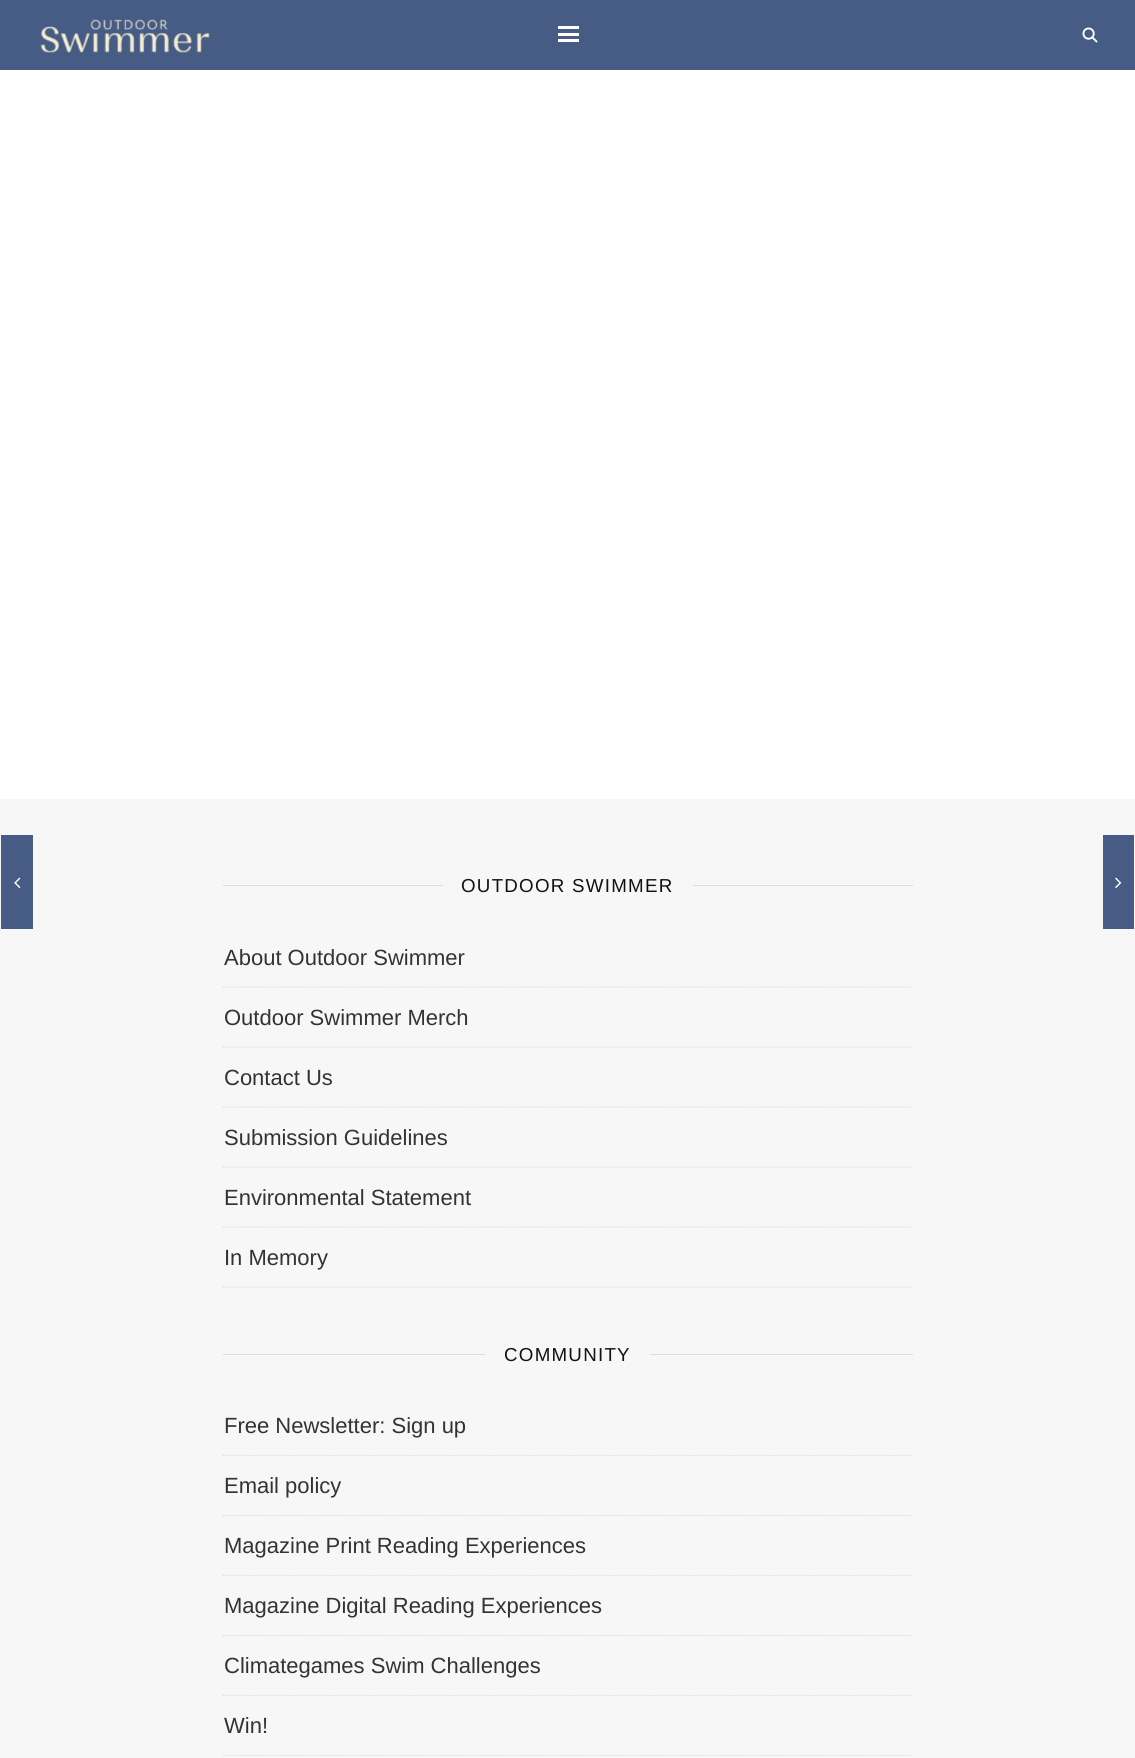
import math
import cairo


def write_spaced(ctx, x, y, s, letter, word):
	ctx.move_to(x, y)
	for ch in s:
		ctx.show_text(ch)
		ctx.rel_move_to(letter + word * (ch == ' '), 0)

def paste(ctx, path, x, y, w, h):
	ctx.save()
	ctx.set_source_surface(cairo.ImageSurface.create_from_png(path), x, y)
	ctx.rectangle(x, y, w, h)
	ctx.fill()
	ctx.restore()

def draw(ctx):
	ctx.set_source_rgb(1, 1, 1)
	ctx.paint()
	ctx.set_source_rgb(0.275, 0.361, 0.522)
	ctx.rectangle(0, 0, 1135, 70)
	ctx.fill()
	paste(ctx, 'media/1.png', 40, 19, 170, 34)
	ctx.set_source_rgb(1, 1, 1)
	ctx.rectangle(558, 26, 21, 3)
	ctx.rectangle(558, 33, 21, 3)
	ctx.rectangle(558, 39, 21, 3)
	ctx.fill()
	paste(ctx, 'media/2.png', 1082, 27, 16, 16)
	ctx.set_source_rgb(0.965, 0.965, 0.965)
	ctx.rectangle(0, 799, 1135, 959)
	ctx.fill()
	ctx.set_source_rgb(0.275, 0.361, 0.522)
	ctx.rectangle(1, 835, 32, 94)
	ctx.fill()
	paste(ctx, 'media/3.png', 14, 877, 7, 11)
	ctx.rectangle(1103, 835, 31, 94)
	ctx.fill()
	paste(ctx, 'media/4.png', 1115, 877, 7, 11)
	ctx.set_source_rgb(0.878, 0.859, 0.859)
	ctx.rectangle(223, 885, 220, 1)
	ctx.fill()
	ctx.select_font_face('Liberation Sans')
	ctx.set_font_size(18.75)
	ctx.set_source_rgb(0.067, 0.067, 0.067)
	write_spaced(ctx, 461, 892, 'OUTDOOR SWIMMER', 1.25, 0)
	ctx.set_source_rgb(0.878, 0.859, 0.859)
	ctx.rectangle(693, 885, 220, 1)
	ctx.fill()
	ctx.new_path()
	ctx.move_to(222.5, 987)
	ctx.line_to(912.5, 987)
	ctx.set_line_width(1.2)
	ctx.set_dash([1.25, 1.25])
	ctx.stroke()
	ctx.set_font_size(22)
	ctx.set_source_rgb(0.2, 0.2, 0.2)
	ctx.move_to(224, 965)
	ctx.show_text('About Outdoor Swimmer')
	ctx.new_path()
	ctx.move_to(222.5, 1047)
	ctx.line_to(912.5, 1047)
	ctx.set_source_rgb(0.878, 0.859, 0.859)
	ctx.stroke()
	ctx.set_source_rgb(0.2, 0.2, 0.2)
	ctx.move_to(224, 1025)
	ctx.show_text('Outdoor Swimmer Merch')
	ctx.new_path()
	ctx.move_to(222.5, 1107)
	ctx.line_to(912.5, 1107)
	ctx.set_source_rgb(0.878, 0.859, 0.859)
	ctx.stroke()
	ctx.set_source_rgb(0.2, 0.2, 0.2)
	ctx.move_to(224, 1085)
	ctx.show_text('Contact Us')
	ctx.new_path()
	ctx.move_to(222.5, 1167)
	ctx.line_to(912.5, 1167)
	ctx.set_source_rgb(0.878, 0.859, 0.859)
	ctx.stroke()
	ctx.set_source_rgb(0.2, 0.2, 0.2)
	ctx.move_to(224, 1145)
	ctx.show_text('Submission Guidelines')
	ctx.new_path()
	ctx.move_to(222.5, 1227)
	ctx.line_to(912.5, 1227)
	ctx.set_source_rgb(0.878, 0.859, 0.859)
	ctx.stroke()
	ctx.set_source_rgb(0.2, 0.2, 0.2)
	ctx.move_to(224, 1205)
	ctx.show_text('Environmental Statement')
	ctx.new_path()
	ctx.move_to(222.5, 1287)
	ctx.line_to(912.5, 1287)
	ctx.set_source_rgb(0.878, 0.859, 0.859)
	ctx.stroke()
	ctx.set_source_rgb(0.2, 0.2, 0.2)
	ctx.move_to(224, 1265)
	ctx.show_text('In Memory')
	ctx.set_source_rgb(0.878, 0.859, 0.859)
	ctx.rectangle(223, 1354, 262, 1)
	ctx.fill()
	ctx.set_font_size(18.75)
	ctx.set_source_rgb(0.067, 0.067, 0.067)
	write_spaced(ctx, 504, 1361, 'COMMUNITY', 1.25, 0)
	ctx.set_source_rgb(0.878, 0.859, 0.859)
	ctx.rectangle(650, 1354, 263, 1)
	ctx.fill()
	ctx.new_path()
	ctx.move_to(222.5, 1455.5)
	ctx.line_to(912.5, 1455.5)
	ctx.stroke()
	ctx.set_font_size(22)
	ctx.set_source_rgb(0.2, 0.2, 0.2)
	ctx.move_to(224, 1433)
	ctx.show_text('Free Newsletter: Sign up')
	ctx.new_path()
	ctx.move_to(222.5, 1515.5)
	ctx.line_to(912.5, 1515.5)
	ctx.set_source_rgb(0.878, 0.859, 0.859)
	ctx.stroke()
	ctx.set_source_rgb(0.2, 0.2, 0.2)
	ctx.move_to(224, 1493)
	ctx.show_text('Email policy')
	ctx.new_path()
	ctx.move_to(222.5, 1575.5)
	ctx.line_to(912.5, 1575.5)
	ctx.set_source_rgb(0.878, 0.859, 0.859)
	ctx.stroke()
	ctx.set_source_rgb(0.2, 0.2, 0.2)
	ctx.move_to(224, 1553)
	ctx.show_text('Magazine Print Reading Experiences')
	ctx.new_path()
	ctx.move_to(222.5, 1635.5)
	ctx.line_to(912.5, 1635.5)
	ctx.set_source_rgb(0.878, 0.859, 0.859)
	ctx.stroke()
	ctx.set_source_rgb(0.2, 0.2, 0.2)
	ctx.move_to(224, 1613)
	ctx.show_text('Magazine Digital Reading Experiences')
	ctx.new_path()
	ctx.move_to(222.5, 1695.5)
	ctx.line_to(912.5, 1695.5)
	ctx.set_source_rgb(0.878, 0.859, 0.859)
	ctx.stroke()
	ctx.set_source_rgb(0.2, 0.2, 0.2)
	ctx.move_to(224, 1673)
	ctx.show_text('Climategames Swim Challenges')
	ctx.save()
	ctx.rectangle(223, 1338, 690, 418)
	ctx.clip()
	ctx.new_path()
	ctx.move_to(222.5, 1755.5)
	ctx.line_to(912.5, 1755.5)
	ctx.set_source_rgb(0.878, 0.859, 0.859)
	ctx.stroke()
	ctx.restore()
	ctx.move_to(224, 1733)
	ctx.show_text('Win!')


surface = cairo.ImageSurface(cairo.FORMAT_RGB24, 1135, 1758)
ctx = cairo.Context(surface)
options = cairo.FontOptions()
options.set_hint_metrics(cairo.HINT_METRICS_OFF)
options.set_hint_style(cairo.HINT_STYLE_NONE)
ctx.set_font_options(options)
ctx.set_miter_limit(4)
draw(ctx)
surface.write_to_png('image.png')
